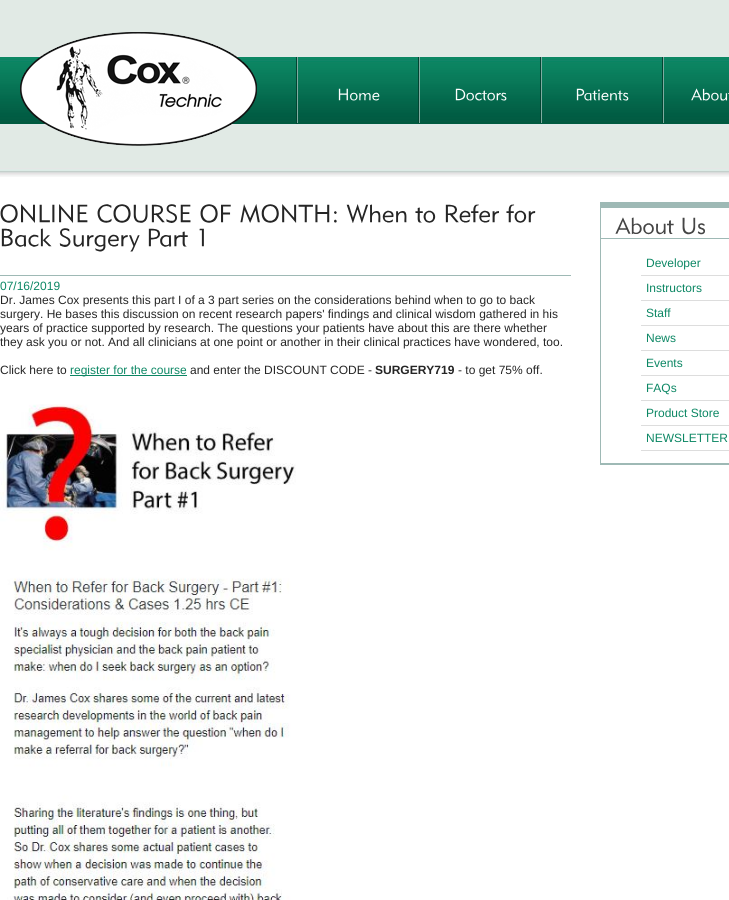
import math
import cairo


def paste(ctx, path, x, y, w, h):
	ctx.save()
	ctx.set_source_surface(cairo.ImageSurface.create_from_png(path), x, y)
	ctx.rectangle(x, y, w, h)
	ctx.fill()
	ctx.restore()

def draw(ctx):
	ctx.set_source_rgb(1, 1, 1)
	ctx.paint()
	paste(ctx, 'media/1.png', 0, 0, 729, 177)
	paste(ctx, 'media/2.png', 20, 32, 237, 114)
	ctx.set_source_rgb(0.004, 0.271, 0.196)
	ctx.rectangle(296, 57, 1, 67)
	ctx.rectangle(418, 57, 1, 66)
	ctx.fill()
	ctx.set_source_rgb(0.498, 0.675, 0.627)
	ctx.rectangle(297, 57, 1, 66)
	ctx.fill()
	paste(ctx, 'media/3.png', 338, 88, 42, 13)
	ctx.set_source_rgb(0.004, 0.271, 0.196)
	ctx.rectangle(540, 57, 1, 66)
	ctx.fill()
	ctx.set_source_rgb(0.498, 0.675, 0.627)
	ctx.rectangle(419, 57, 1, 66)
	ctx.fill()
	paste(ctx, 'media/4.png', 455, 88, 52, 13)
	ctx.set_source_rgb(0.004, 0.271, 0.196)
	ctx.rectangle(662, 57, 1, 66)
	ctx.fill()
	ctx.set_source_rgb(0.498, 0.675, 0.627)
	ctx.rectangle(541, 57, 1, 66)
	ctx.fill()
	paste(ctx, 'media/5.png', 576, 88, 53, 13)
	ctx.rectangle(663, 57, 1, 66)
	ctx.fill()
	paste(ctx, 'media/6.png', 691, 88, 38, 13)
	paste(ctx, 'media/7.png', 0, 204, 88, 19)
	paste(ctx, 'media/8.png', 97, 204, 94, 19)
	paste(ctx, 'media/9.png', 200, 204, 31, 19)
	paste(ctx, 'media/10.png', 240, 204, 97, 19)
	paste(ctx, 'media/11.png', 346, 204, 61, 19)
	paste(ctx, 'media/12.png', 415, 207, 21, 16)
	paste(ctx, 'media/13.png', 445, 204, 54, 19)
	paste(ctx, 'media/14.png', 506, 204, 30, 19)
	paste(ctx, 'media/15.png', 1, 228, 51, 19)
	paste(ctx, 'media/16.png', 59, 228, 81, 24)
	paste(ctx, 'media/17.png', 148, 228, 40, 19)
	paste(ctx, 'media/18.png', 199, 228, 5, 19)
	ctx.set_source_rgb(0.62, 0.725, 0.71)
	ctx.rectangle(0, 275, 571, 1)
	ctx.fill()
	ctx.select_font_face('Liberation Sans')
	ctx.set_font_size(12)
	ctx.set_source_rgb(0.047, 0.529, 0.392)
	ctx.move_to(0, 290)
	ctx.show_text('07/16/2019')
	ctx.set_source_rgb(0.145, 0.145, 0.145)
	for x, y, s in [
		(0, 304, 'Dr. James Cox presents this part I of a 3 part series on the considerations behind when to go to back'),
		(0, 318, 'surgery. He bases this discussion on recent research papers\' findings and clinical wisdom gathered in his'),
		(0, 332, 'years of practice supported by research. The questions your patients have about this are there whether'),
		(0, 346, 'they ask you or not. And all clinicians at one point or another in their clinical practices have wondered, too.'),
		(0, 374, 'Click here to'),
	]:
		ctx.move_to(x, y)
		ctx.show_text(s)
	ctx.set_source_rgb(0.047, 0.529, 0.392)
	ctx.rectangle(70, 375, 117, 1)
	ctx.fill()
	ctx.move_to(70, 374)
	ctx.show_text('register for the course')
	ctx.set_source_rgb(0.145, 0.145, 0.145)
	ctx.move_to(190, 374)
	ctx.show_text('and enter the DISCOUNT CODE -')
	ctx.select_font_face('Liberation Sans', cairo.FONT_SLANT_NORMAL, cairo.FONT_WEIGHT_BOLD)
	ctx.move_to(375, 374)
	ctx.show_text('SURGERY719')
	ctx.select_font_face('Liberation Sans')
	ctx.move_to(458, 374)
	ctx.show_text('- to get 75% off.')
	paste(ctx, 'media/19.png', 0, 404, 296, 496)
	ctx.set_source_rgb(0.62, 0.725, 0.71)
	ctx.rectangle(600, 202, 129, 6)
	ctx.rectangle(600, 463, 129, 2)
	ctx.rectangle(600, 202, 1, 263)
	ctx.rectangle(601, 238, 128, 1)
	ctx.fill()
	paste(ctx, 'media/20.png', 615, 217, 59, 18)
	paste(ctx, 'media/21.png', 682, 217, 23, 18)
	ctx.set_source_rgb(0.867, 0.867, 0.867)
	ctx.rectangle(641, 275, 88, 1)
	ctx.fill()
	ctx.set_source_rgb(0.047, 0.529, 0.392)
	ctx.move_to(646, 267)
	ctx.show_text('Developer')
	ctx.set_source_rgb(0.867, 0.867, 0.867)
	ctx.rectangle(641, 300, 88, 1)
	ctx.fill()
	ctx.set_source_rgb(0.047, 0.529, 0.392)
	ctx.move_to(646, 292)
	ctx.show_text('Instructors')
	ctx.set_source_rgb(0.867, 0.867, 0.867)
	ctx.rectangle(641, 325, 88, 1)
	ctx.fill()
	ctx.set_source_rgb(0.047, 0.529, 0.392)
	ctx.move_to(646, 317)
	ctx.show_text('Staff')
	ctx.set_source_rgb(0.867, 0.867, 0.867)
	ctx.rectangle(641, 350, 88, 1)
	ctx.fill()
	ctx.set_source_rgb(0.047, 0.529, 0.392)
	ctx.move_to(646, 342)
	ctx.show_text('News')
	ctx.set_source_rgb(0.867, 0.867, 0.867)
	ctx.rectangle(641, 375, 88, 1)
	ctx.fill()
	ctx.set_source_rgb(0.047, 0.529, 0.392)
	ctx.move_to(646, 367)
	ctx.show_text('Events')
	ctx.set_source_rgb(0.867, 0.867, 0.867)
	ctx.rectangle(641, 400, 88, 1)
	ctx.fill()
	ctx.set_source_rgb(0.047, 0.529, 0.392)
	ctx.move_to(646, 392)
	ctx.show_text('FAQs')
	ctx.set_source_rgb(0.867, 0.867, 0.867)
	ctx.rectangle(641, 425, 88, 1)
	ctx.fill()
	ctx.set_source_rgb(0.047, 0.529, 0.392)
	ctx.move_to(646, 417)
	ctx.show_text('Product Store')
	ctx.set_source_rgb(0.867, 0.867, 0.867)
	ctx.rectangle(641, 450, 88, 1)
	ctx.fill()
	ctx.set_source_rgb(0.047, 0.529, 0.392)
	ctx.move_to(646, 442)
	ctx.show_text('NEWSLETTER')


surface = cairo.ImageSurface(cairo.FORMAT_RGB24, 729, 900)
ctx = cairo.Context(surface)
options = cairo.FontOptions()
options.set_hint_metrics(cairo.HINT_METRICS_OFF)
options.set_hint_style(cairo.HINT_STYLE_NONE)
ctx.set_font_options(options)
ctx.set_miter_limit(4)
draw(ctx)
surface.write_to_png('image.png')
